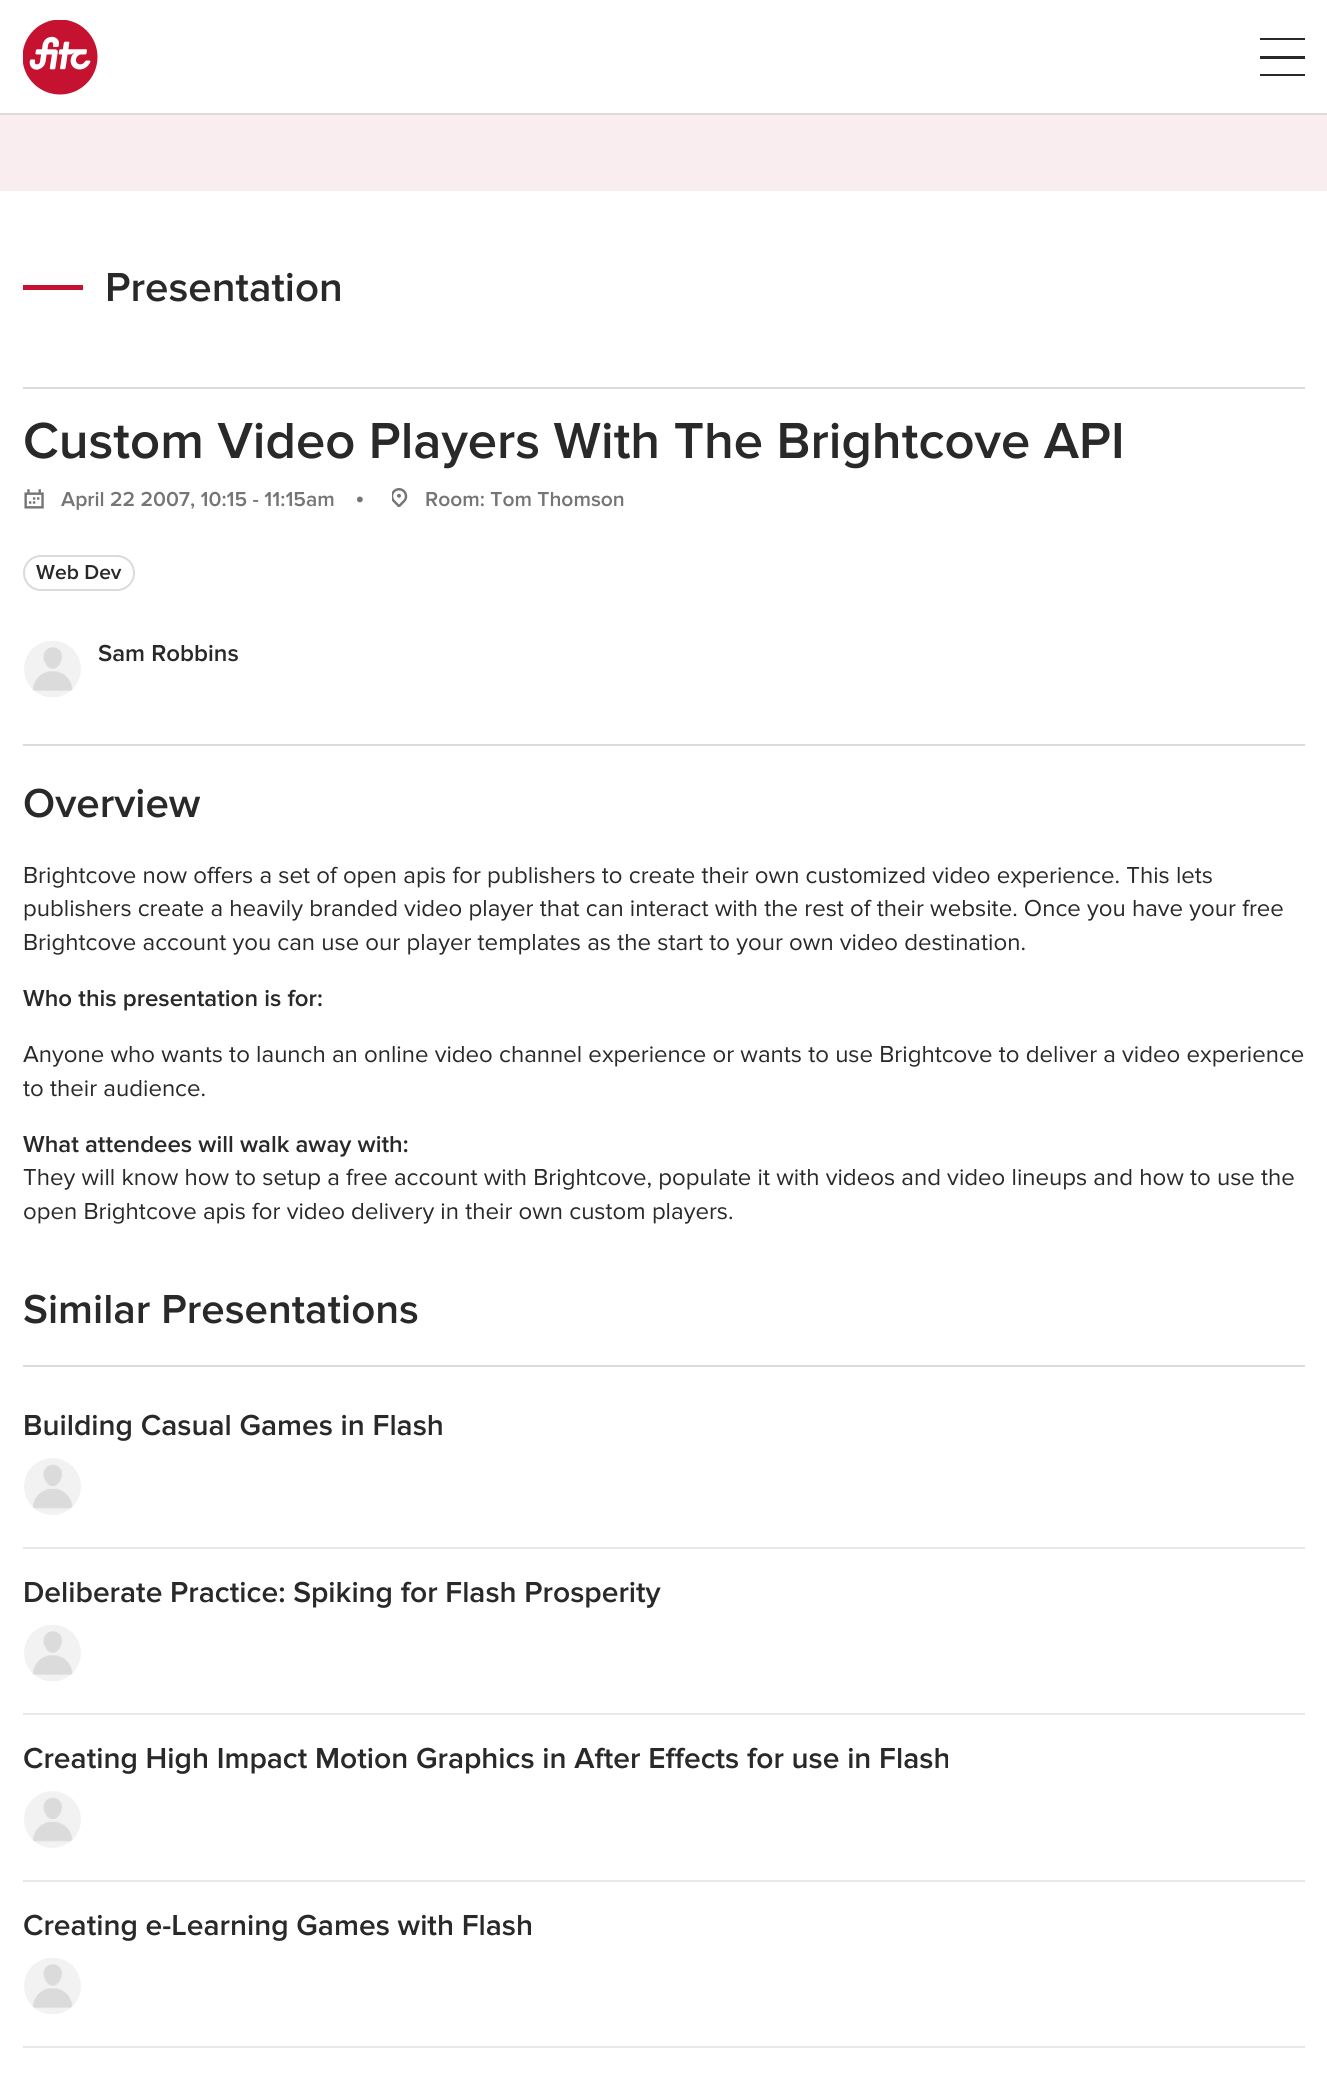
import math
import cairo


def round_path(ctx, x, y, w, h, r):
	ctx.new_sub_path()
	for i, (u, v) in enumerate([(x + w - r, y + h - r), (x + r, y + h - r), (x + r, y + r), (x + w - r, y + r)]):
		ctx.arc(u, v, r, i * math.pi / 2, (i + 1) * math.pi / 2)
	ctx.close_path()

def paste(ctx, path, x, y, w, h):
	ctx.save()
	ctx.set_source_surface(cairo.ImageSurface.create_from_png(path), x, y)
	ctx.rectangle(x, y, w, h)
	ctx.fill()
	ctx.restore()

def draw(ctx):
	ctx.set_source_rgb(1, 1, 1)
	ctx.paint()
	ctx.set_source_rgb(0.859, 0.859, 0.859)
	ctx.rectangle(0, 113, 1327, 2)
	ctx.fill()
	paste(ctx, 'media/1.png', 23, 20, 75, 75)
	ctx.set_source_rgb(0.161, 0.161, 0.161)
	ctx.rectangle(1260, 74, 45, 2)
	ctx.rectangle(1260, 56, 45, 3)
	ctx.rectangle(1260, 38, 45, 2)
	ctx.fill()
	ctx.set_source_rgb(0.976, 0.929, 0.937)
	ctx.rectangle(0, 115, 1327, 76)
	ctx.fill()
	ctx.set_source_rgb(0.769, 0.071, 0.188)
	ctx.rectangle(23, 285, 60, 5)
	ctx.fill()
	ctx.select_font_face('Proxima Nova SemiBold')
	ctx.set_font_size(42)
	ctx.set_source_rgb(0.161, 0.161, 0.161)
	ctx.move_to(105, 301)
	ctx.show_text('Presentation')
	ctx.set_source_rgb(0.859, 0.859, 0.859)
	ctx.rectangle(23, 387, 1282, 2)
	ctx.fill()
	ctx.set_font_size(52.5)
	ctx.set_source_rgb(0.161, 0.161, 0.161)
	ctx.move_to(23, 458)
	ctx.show_text('Custom Video Players With The Brightcove API')
	paste(ctx, 'media/2.png', 24, 489, 20, 20)
	ctx.set_font_size(21)
	ctx.set_source_rgb(0.459, 0.459, 0.459)
	ctx.move_to(61, 506)
	ctx.show_text('April 22 2007, 10:15 - 11:15am')
	ctx.select_font_face('Proxima Nova')
	ctx.set_font_size(27)
	ctx.move_to(355, 506)
	ctx.show_text('•')
	paste(ctx, 'media/3.png', 392, 488, 16, 19)
	ctx.select_font_face('Proxima Nova SemiBold')
	ctx.set_font_size(21)
	ctx.move_to(425, 506)
	ctx.show_text('Room: Tom Thomson')
	round_path(ctx, 24, 556, 110, 34, 17)
	ctx.set_source_rgb(0.859, 0.859, 0.859)
	ctx.stroke()
	ctx.set_source_rgb(0.161, 0.161, 0.161)
	ctx.move_to(36, 579)
	ctx.show_text('Web Dev')
	ctx.set_source_rgb(0.859, 0.859, 0.859)
	ctx.rectangle(23, 744, 1282, 2)
	ctx.fill()
	paste(ctx, 'media/4.png', 24, 641, 57, 56)
	ctx.set_font_size(24)
	ctx.set_source_rgb(0.161, 0.161, 0.161)
	ctx.move_to(98, 661)
	ctx.show_text('Sam Robbins')
	ctx.set_font_size(42)
	ctx.move_to(23, 817)
	ctx.show_text('Overview')
	ctx.select_font_face('Proxima Nova')
	ctx.set_font_size(24)
	for x, y, s in [
		(23, 883, 'Brightcove now offers a set of open apis for publishers to create their own customized video experience. This lets'),
		(23, 916, 'publishers create a heavily branded video player that can interact with the rest of their website. Once you have your free'),
		(23, 950, 'Brightcove account you can use our player templates as the start to your own video destination.'),
	]:
		ctx.move_to(x, y)
		ctx.show_text(s)
	ctx.select_font_face('Proxima Nova SemiBold')
	ctx.move_to(23, 1006)
	ctx.show_text('Who this presentation is for:')
	ctx.select_font_face('Proxima Nova')
	ctx.move_to(23, 1062)
	ctx.show_text('Anyone who wants to launch an online video channel experience or wants to use Brightcove to deliver a video experience')
	ctx.move_to(23, 1096)
	ctx.show_text('to their audience.')
	ctx.select_font_face('Proxima Nova SemiBold')
	ctx.move_to(23, 1152)
	ctx.show_text('What attendees will walk away with:')
	ctx.select_font_face('Proxima Nova')
	ctx.move_to(23, 1185)
	ctx.show_text('They will know how to setup a free account with Brightcove, populate it with videos and video lineups and how to use the')
	ctx.move_to(23, 1219)
	ctx.show_text('open Brightcove apis for video delivery in their own custom players.')
	ctx.select_font_face('Proxima Nova SemiBold')
	ctx.set_font_size(42)
	ctx.move_to(23, 1323)
	ctx.show_text('Similar Presentations')
	ctx.set_source_rgb(0.859, 0.859, 0.859)
	ctx.rectangle(23, 1365, 1282, 2)
	ctx.fill()
	ctx.set_source_rgb(0.91, 0.91, 0.91)
	ctx.rectangle(23, 1547, 1282, 2)
	ctx.fill()
	ctx.set_font_size(30)
	ctx.set_source_rgb(0.161, 0.161, 0.161)
	ctx.move_to(23, 1435)
	ctx.show_text('Building Casual Games in Flash')
	paste(ctx, 'media/5.png', 24, 1458, 57, 57)
	ctx.set_source_rgb(0.91, 0.91, 0.91)
	ctx.rectangle(23, 1713, 1282, 2)
	ctx.fill()
	ctx.set_source_rgb(0.161, 0.161, 0.161)
	ctx.move_to(23, 1602)
	ctx.show_text('Deliberate Practice: Spiking for Flash Prosperity')
	paste(ctx, 'media/6.png', 24, 1625, 57, 56)
	ctx.set_source_rgb(0.91, 0.91, 0.91)
	ctx.rectangle(23, 1880, 1282, 2)
	ctx.fill()
	ctx.set_source_rgb(0.161, 0.161, 0.161)
	ctx.move_to(23, 1768)
	ctx.show_text('Creating High Impact Motion Graphics in After Effects for use in Flash')
	paste(ctx, 'media/7.png', 24, 1791, 57, 57)
	ctx.set_source_rgb(0.91, 0.91, 0.91)
	ctx.rectangle(23, 2046, 1282, 2)
	ctx.fill()
	ctx.set_source_rgb(0.161, 0.161, 0.161)
	ctx.move_to(23, 1935)
	ctx.show_text('Creating e-Learning Games with Flash')
	paste(ctx, 'media/6.png', 24, 1958, 57, 56)


surface = cairo.ImageSurface(cairo.FORMAT_RGB24, 1327, 2080)
ctx = cairo.Context(surface)
options = cairo.FontOptions()
options.set_hint_metrics(cairo.HINT_METRICS_OFF)
options.set_hint_style(cairo.HINT_STYLE_NONE)
ctx.set_font_options(options)
ctx.set_miter_limit(4)
draw(ctx)
surface.write_to_png('image.png')
